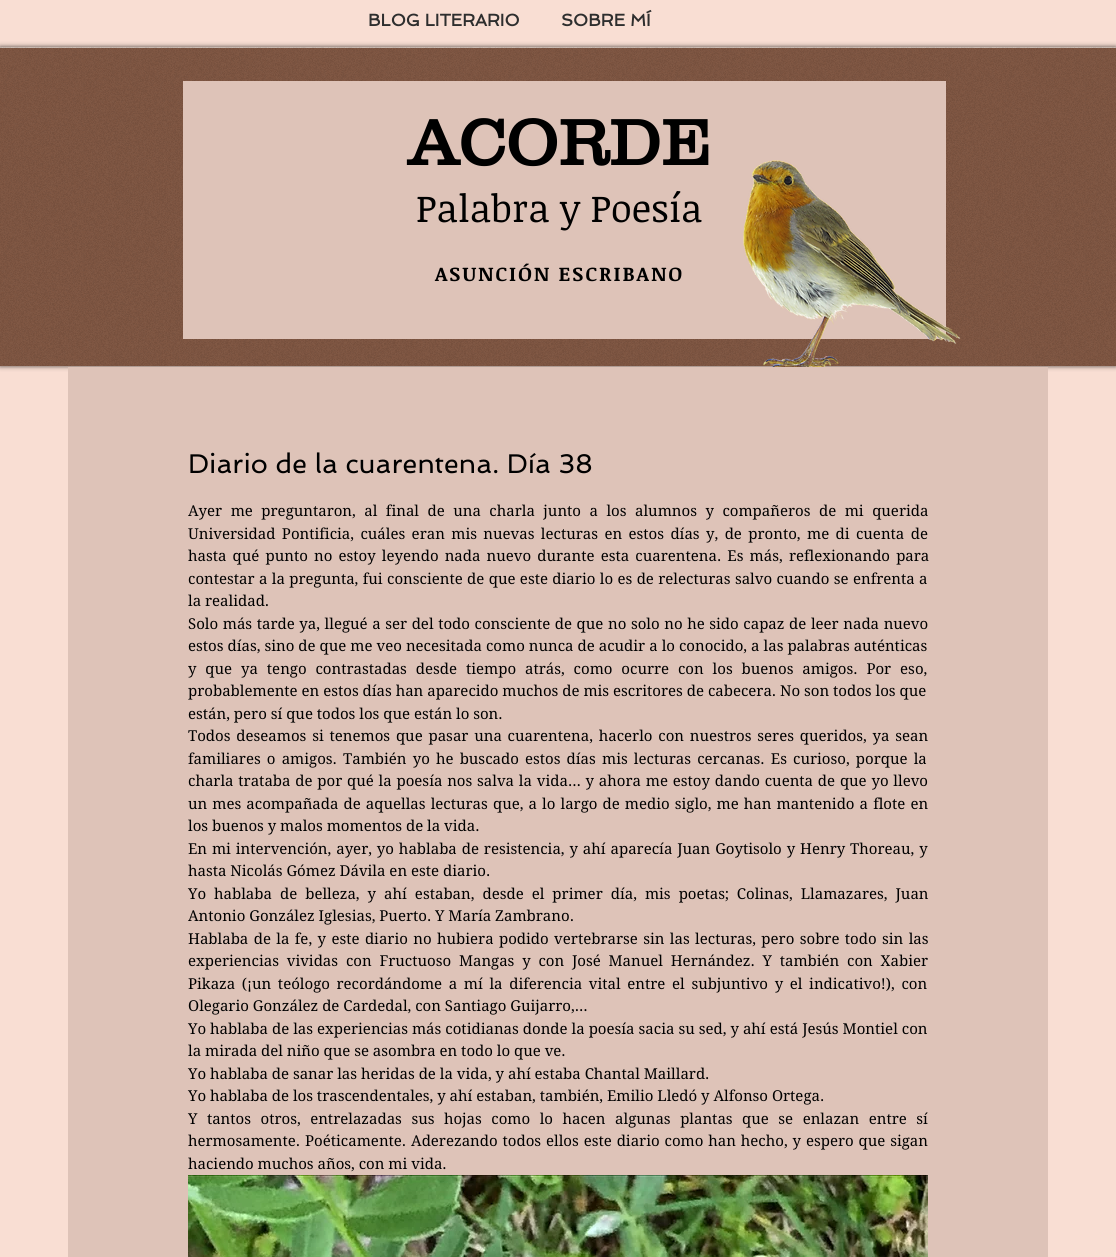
import math
import cairo


def write_spaced(ctx, x, y, s, letter, word):
	ctx.move_to(x, y)
	for ch in s:
		ctx.show_text(ch)
		ctx.rel_move_to(letter + word * (ch == ' '), 0)

def round_path(ctx, x, y, w, h, r):
	ctx.new_sub_path()
	for i, (u, v) in enumerate([(x + w - r, y + h - r), (x + r, y + h - r), (x + r, y + r), (x + w - r, y + r)]):
		ctx.arc(u, v, r, i * math.pi / 2, (i + 1) * math.pi / 2)
	ctx.close_path()

def blur_box(ctx, x, y, w, h, r, blur, alpha):
	ctx.push_group_with_content(cairo.CONTENT_ALPHA)
	ctx.set_operator(cairo.OPERATOR_SOURCE)
	for i in range(15, -16, -2):
		e = blur * i / 6
		if min(w, h) + 2 * e > 0:
			ctx.set_source_rgba(0, 0, 0, alpha * math.erfc((i - 1) / 8.5) / 2)
			round_path(ctx, x - e, y - e, w + 2 * e, h + 2 * e, max(0, min(r + e + blur * .6, min(w, h) / 2 + e)))
			ctx.fill()
	ctx.mask(ctx.pop_group())

def paste(ctx, path, x, y, w, h):
	ctx.save()
	ctx.set_source_surface(cairo.ImageSurface.create_from_png(path), x, y)
	ctx.rectangle(x, y, w, h)
	ctx.fill()
	ctx.restore()

def draw(ctx):
	ctx.set_source_rgb(0.976, 0.871, 0.827)
	ctx.paint()
	ctx.select_font_face('Spinnaker', cairo.FONT_SLANT_NORMAL, cairo.FONT_WEIGHT_BOLD)
	ctx.set_font_size(17)
	ctx.set_source_rgb(0.18, 0.18, 0.18)
	ctx.move_to(368, 26)
	ctx.show_text('BLOG LITERARIO')
	ctx.move_to(561, 26)
	ctx.show_text('SOBRE MÍ')
	ctx.set_source_rgb(0.494, 0.333, 0.255)
	ctx.rectangle(0, 48, 1116, 318)
	ctx.fill()
	ctx.set_source_rgb(0.792, 0.729, 0.694)
	ctx.rectangle(0, 47, 1116, 1)
	ctx.fill()
	ctx.save()
	ctx.set_fill_rule(cairo.FILL_RULE_EVEN_ODD)
	ctx.new_path()
	ctx.move_to(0, 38)
	ctx.line_to(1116, 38)
	ctx.line_to(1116, 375)
	ctx.line_to(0, 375)
	ctx.close_path()
	ctx.move_to(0, 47)
	ctx.line_to(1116, 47)
	ctx.line_to(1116, 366)
	ctx.line_to(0, 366)
	ctx.close_path()
	ctx.clip()
	ctx.set_source_rgb(0, 0, 0)
	blur_box(ctx, 0, 47, 1116, 319, 0, 2.5, 0.7)
	ctx.restore()
	paste(ctx, 'media/1.png', 0, 47, 1116, 319)
	ctx.set_source_rgb(0.871, 0.765, 0.722)
	ctx.rectangle(183, 81, 763, 258)
	ctx.fill()
	ctx.select_font_face('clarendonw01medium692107', cairo.FONT_SLANT_NORMAL, cairo.FONT_WEIGHT_BOLD)
	ctx.set_font_size(66)
	ctx.set_source_rgb(0, 0, 0)
	ctx.move_to(408, 165)
	ctx.show_text('ACORDE')
	ctx.select_font_face('Noticia Text')
	ctx.set_font_size(38)
	ctx.move_to(416, 222)
	ctx.show_text('Palabra y Poesía')
	ctx.select_font_face('Noticia Text', cairo.FONT_SLANT_NORMAL, cairo.FONT_WEIGHT_BOLD)
	ctx.set_font_size(20)
	write_spaced(ctx, 435, 281, 'ASUNCIÓN ESCRIBANO', 2, 0)
	paste(ctx, 'media/2.png', 743, 160, 218, 207)
	ctx.set_source_rgb(0.871, 0.765, 0.722)
	ctx.rectangle(68, 367, 980, 890)
	ctx.fill()
	ctx.select_font_face('Spinnaker')
	ctx.set_font_size(27)
	ctx.set_source_rgb(0, 0, 0)
	ctx.move_to(188, 473)
	ctx.show_text('Diario de la cuarentena. Día 38')
	ctx.select_font_face('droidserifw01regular')
	ctx.set_font_size(15)
	write_spaced(ctx, 188, 516, 'Ayer me preguntaron, al final de una charla junto a los alumnos y compañeros de mi querida', 0, 4.6)
	write_spaced(ctx, 188, 539, 'Universidad Pontificia, cuáles eran mis nuevas lecturas en estos días y, de pronto, me di cuenta de', 0, 2.5)
	write_spaced(ctx, 188, 561, 'hasta qué punto no estoy leyendo nada nuevo durante esta cuarentena. Es más, reflexionando para', 0, 2.25)
	write_spaced(ctx, 188, 584, 'contestar a la pregunta, fui consciente de que este diario lo es de relecturas salvo cuando se enfrenta a', 0, 0.5)
	ctx.move_to(188, 606)
	ctx.show_text('la realidad.')
	write_spaced(ctx, 188, 629, 'Solo más tarde ya, llegué a ser del todo consciente de que no solo no he sido capaz de leer nada nuevo', 0, 0.7)
	write_spaced(ctx, 188, 651, 'estos días, sino de que me veo necesitada como nunca de acudir a lo conocido, a las palabras auténticas', 0, 0.1)
	write_spaced(ctx, 188, 674, 'y que ya tengo contrastadas desde tiempo atrás, como ocurre con los buenos amigos. Por eso,', 0, 5)
	ctx.move_to(188, 696)
	ctx.show_text('probablemente en estos días han aparecido muchos de mis escritores de cabecera. No son todos los que')
	ctx.move_to(188, 719)
	ctx.show_text('están, pero sí que todos los que están lo son.')
	write_spaced(ctx, 188, 741, 'Todos deseamos si tenemos que pasar una cuarentena, hacerlo con nuestros seres queridos, ya sean', 0, 1.9)
	write_spaced(ctx, 188, 764, 'familiares o amigos. También yo he buscado estos días mis lecturas cercanas. Es curioso, porque la', 0, 2.25)
	write_spaced(ctx, 188, 786, 'charla trataba de por qué la poesía nos salva la vida… y ahora me estoy dando cuenta de que yo llevo', 0, 0.9)
	write_spaced(ctx, 188, 809, 'un mes acompañada de aquellas lecturas que, a lo largo de medio siglo, me han mantenido a flote en', 0, 1.2)
	ctx.move_to(188, 831)
	ctx.show_text('los buenos y malos momentos de la vida.')
	write_spaced(ctx, 188, 854, 'En mi intervención, ayer, yo hablaba de resistencia, y ahí aparecía Juan Goytisolo y Henry Thoreau, y', 0, 1)
	ctx.move_to(188, 876)
	ctx.show_text('hasta Nicolás Gómez Dávila en este diario.')
	write_spaced(ctx, 188, 899, 'Yo hablaba de belleza, y ahí estaban, desde el primer día, mis poetas; Colinas, Llamazares, Juan', 0, 4.1)
	ctx.move_to(188, 921)
	ctx.show_text('Antonio González Iglesias, Puerto. Y María Zambrano.')
	write_spaced(ctx, 188, 944, 'Hablaba de la fe, y este diario no hubiera podido vertebrarse sin las lecturas, pero sobre todo sin las', 0, 1.5)
	write_spaced(ctx, 188, 966, 'experiencias vividas con Fructuoso Mangas y con José Manuel Hernández. Y también con Xabier', 0, 3.9)
	write_spaced(ctx, 188, 989, 'Pikaza (¡un teólogo recordándome a mí la diferencia vital entre el subjuntivo y el indicativo!), con', 0, 2.75)
	ctx.move_to(188, 1011)
	ctx.show_text('Olegario González de Cardedal, con Santiago Guijarro,…')
	write_spaced(ctx, 188, 1034, 'Yo hablaba de las experiencias más cotidianas donde la poesía sacia su sed, y ahí está Jesús Montiel con', 0, 0.1)
	for x, y, s in [
		(188, 1056, 'la mirada del niño que se asombra en todo lo que ve.'),
		(188, 1079, 'Yo hablaba de sanar las heridas de la vida, y ahí estaba Chantal Maillard.'),
		(188, 1101, 'Yo hablaba de los trascendentales, y ahí estaban, también, Emilio Lledó y Alfonso Ortega.'),
	]:
		ctx.move_to(x, y)
		ctx.show_text(s)
	write_spaced(ctx, 188, 1124, 'Y tantos otros, entrelazadas sus hojas como lo hacen algunas plantas que se enlazan entre sí', 0, 5.6)
	write_spaced(ctx, 188, 1146, 'hermosamente. Poéticamente. Aderezando todos ellos este diario como han hecho, y espero que sigan', 0, 1)
	ctx.move_to(188, 1169)
	ctx.show_text('haciendo muchos años, con mi vida.')
	paste(ctx, 'media/3.png', 188, 1175, 740, 82)


surface = cairo.ImageSurface(cairo.FORMAT_RGB24, 1116, 1257)
ctx = cairo.Context(surface)
options = cairo.FontOptions()
options.set_hint_metrics(cairo.HINT_METRICS_OFF)
options.set_hint_style(cairo.HINT_STYLE_NONE)
ctx.set_font_options(options)
ctx.set_miter_limit(4)
draw(ctx)
surface.write_to_png('image.png')
